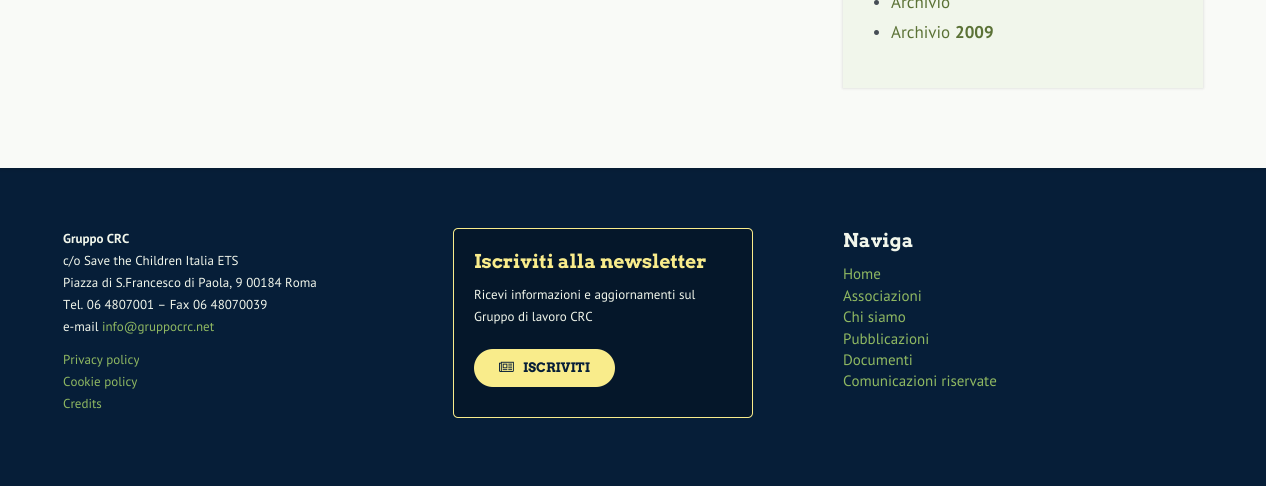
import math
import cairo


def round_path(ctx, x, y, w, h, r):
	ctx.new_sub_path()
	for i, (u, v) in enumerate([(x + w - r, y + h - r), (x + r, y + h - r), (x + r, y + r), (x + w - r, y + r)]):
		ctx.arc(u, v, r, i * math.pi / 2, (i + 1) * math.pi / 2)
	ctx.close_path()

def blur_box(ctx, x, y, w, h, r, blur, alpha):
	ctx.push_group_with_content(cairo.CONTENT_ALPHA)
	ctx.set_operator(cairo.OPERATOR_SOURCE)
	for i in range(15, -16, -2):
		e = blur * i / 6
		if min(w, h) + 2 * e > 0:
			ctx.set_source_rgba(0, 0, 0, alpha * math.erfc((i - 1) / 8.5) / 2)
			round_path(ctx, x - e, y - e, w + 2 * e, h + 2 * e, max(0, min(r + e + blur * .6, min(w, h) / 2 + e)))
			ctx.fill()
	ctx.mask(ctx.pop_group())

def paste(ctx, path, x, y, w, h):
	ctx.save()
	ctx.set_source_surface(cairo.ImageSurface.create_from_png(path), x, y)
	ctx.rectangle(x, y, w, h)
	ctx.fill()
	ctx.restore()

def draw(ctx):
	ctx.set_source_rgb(0.027, 0.118, 0.22)
	ctx.paint()
	ctx.set_source_rgb(0, 0, 0)
	blur_box(ctx, 0, -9, 1266, 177, 0, 3, 0.2)
	ctx.set_source_rgb(0.973, 0.98, 0.965)
	ctx.rectangle(0, 0, 1266, 168)
	ctx.fill()
	ctx.set_source_rgb(0, 0, 0)
	blur_box(ctx, 843, -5, 360, 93, 0, 1.5, 0.15)
	ctx.set_source_rgb(0.945, 0.961, 0.918)
	ctx.rectangle(843, 0, 360, 88)
	ctx.fill()
	ctx.set_source_rgb(0.278, 0.306, 0.337)
	ctx.arc(876.5, 2.5, 2.5, 0, 2 * math.pi)
	ctx.fill()
	ctx.select_font_face('PT Sans')
	ctx.set_font_size(17)
	ctx.set_source_rgb(0.357, 0.447, 0.212)
	ctx.move_to(891, 8)
	ctx.show_text('Archivio')
	ctx.set_source_rgb(0.278, 0.306, 0.337)
	ctx.new_path()
	ctx.arc(876.5, 32.5, 2.5, 0, 2 * math.pi)
	ctx.fill()
	ctx.set_source_rgb(0.357, 0.447, 0.212)
	ctx.move_to(891, 38)
	ctx.show_text('Archivio')
	ctx.select_font_face('PT Sans', cairo.FONT_SLANT_NORMAL, cairo.FONT_WEIGHT_BOLD)
	ctx.move_to(955, 38)
	ctx.show_text('2009')
	ctx.set_font_size(13)
	ctx.set_source_rgb(0.945, 0.961, 0.918)
	ctx.move_to(63, 243)
	ctx.show_text('Gruppo CRC')
	ctx.select_font_face('PT Sans')
	for x, y, s in [
		(63, 265, 'c/o Save the Children Italia ETS'),
		(63, 287, 'Piazza di S.Francesco di Paola, 9 00184 Roma'),
		(63, 309, 'Tel. 06 4807001 – Fax 06 48070039'),
		(63, 331, 'e-mail'),
	]:
		ctx.move_to(x, y)
		ctx.show_text(s)
	ctx.set_source_rgb(0.561, 0.722, 0.38)
	for x, y, s in [
		(102, 331, 'info@gruppocrc.net'),
		(63, 364, 'Privacy policy'),
		(63, 386, 'Cookie policy'),
		(63, 408, 'Credits'),
	]:
		ctx.move_to(x, y)
		ctx.show_text(s)
	ctx.set_source_rgb(0.02, 0.09, 0.165)
	round_path(ctx, 453.5, 228.5, 299, 189, 4.5)
	ctx.fill_preserve()
	ctx.set_source_rgb(0.976, 0.925, 0.545)
	ctx.set_line_width(1)
	ctx.stroke()
	ctx.select_font_face('Arvo', cairo.FONT_SLANT_NORMAL, cairo.FONT_WEIGHT_BOLD)
	ctx.set_font_size(19)
	ctx.move_to(474, 268)
	ctx.show_text('Iscriviti alla newsletter')
	ctx.select_font_face('PT Sans')
	ctx.set_font_size(13)
	ctx.set_source_rgb(0.945, 0.961, 0.918)
	ctx.move_to(474, 299)
	ctx.show_text('Ricevi informazioni e aggiornamenti sul')
	ctx.move_to(474, 321)
	ctx.show_text('Gruppo di lavoro CRC')
	ctx.set_source_rgb(0.976, 0.925, 0.545)
	round_path(ctx, 474, 349, 141, 38, 19)
	ctx.fill()
	paste(ctx, 'media/1.png', 499, 361, 15, 11)
	ctx.select_font_face('Arvo', cairo.FONT_SLANT_NORMAL, cairo.FONT_WEIGHT_BOLD)
	ctx.set_source_rgb(0.027, 0.118, 0.22)
	ctx.move_to(523, 372)
	ctx.show_text('ISCRIVITI')
	ctx.set_font_size(19)
	ctx.set_source_rgb(0.945, 0.961, 0.918)
	ctx.move_to(843, 247)
	ctx.show_text('Naviga')
	ctx.select_font_face('PT Sans')
	ctx.set_font_size(15)
	ctx.set_source_rgb(0.561, 0.722, 0.38)
	for x, y, s in [
		(843, 279, 'Home'),
		(843, 301, 'Associazioni'),
		(843, 322, 'Chi siamo'),
		(843, 344, 'Pubblicazioni'),
		(843, 365, 'Documenti'),
		(843, 386, 'Comunicazioni riservate'),
	]:
		ctx.move_to(x, y)
		ctx.show_text(s)


surface = cairo.ImageSurface(cairo.FORMAT_RGB24, 1266, 486)
ctx = cairo.Context(surface)
options = cairo.FontOptions()
options.set_hint_metrics(cairo.HINT_METRICS_OFF)
options.set_hint_style(cairo.HINT_STYLE_NONE)
ctx.set_font_options(options)
ctx.set_miter_limit(4)
draw(ctx)
surface.write_to_png('image.png')
